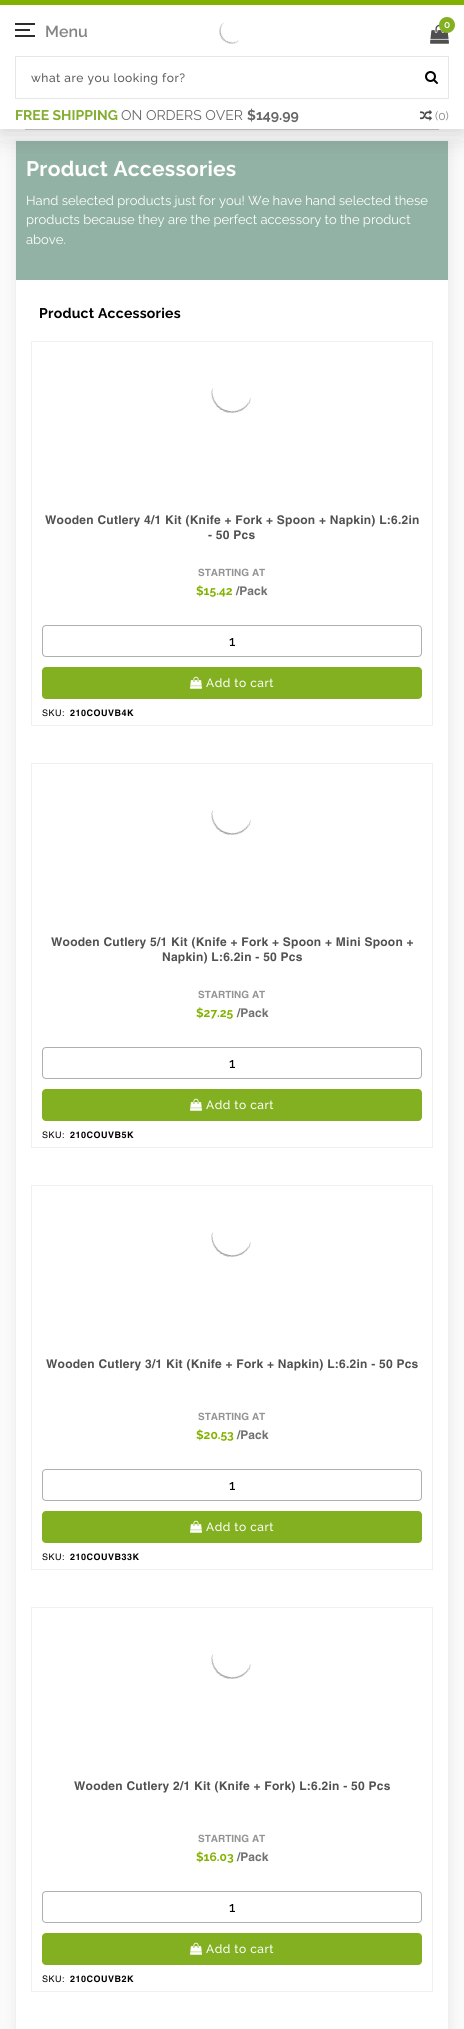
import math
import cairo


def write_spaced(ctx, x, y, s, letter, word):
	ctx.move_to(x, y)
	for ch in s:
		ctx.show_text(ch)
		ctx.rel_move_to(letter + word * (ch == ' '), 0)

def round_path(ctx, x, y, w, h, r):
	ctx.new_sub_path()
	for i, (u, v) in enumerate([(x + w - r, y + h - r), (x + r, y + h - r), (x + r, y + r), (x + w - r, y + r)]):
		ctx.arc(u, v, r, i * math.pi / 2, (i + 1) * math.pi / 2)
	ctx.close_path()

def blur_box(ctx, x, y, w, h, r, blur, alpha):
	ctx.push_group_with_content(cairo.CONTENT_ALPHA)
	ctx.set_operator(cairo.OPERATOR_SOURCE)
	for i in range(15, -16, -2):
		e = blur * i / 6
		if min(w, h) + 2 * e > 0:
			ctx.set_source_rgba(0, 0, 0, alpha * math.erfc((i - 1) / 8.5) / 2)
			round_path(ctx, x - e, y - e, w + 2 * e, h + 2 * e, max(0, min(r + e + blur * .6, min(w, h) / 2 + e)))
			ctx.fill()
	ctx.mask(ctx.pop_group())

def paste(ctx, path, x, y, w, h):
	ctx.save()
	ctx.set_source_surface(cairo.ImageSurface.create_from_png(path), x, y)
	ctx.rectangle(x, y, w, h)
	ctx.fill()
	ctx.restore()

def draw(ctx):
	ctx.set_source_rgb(0.98, 0.98, 0.98)
	ctx.paint()
	ctx.set_source_rgb(1, 1, 1)
	ctx.rectangle(0, 129, 464, 11)
	ctx.fill()
	ctx.rectangle(25.5, 87.5, 413, 42)
	ctx.set_source_rgb(0.8, 0.8, 0.8)
	ctx.set_line_width(1)
	ctx.stroke()
	ctx.set_source_rgb(0, 0, 0)
	blur_box(ctx, 16, 144, 434, 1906, 0, 7, 0.07)
	ctx.set_source_rgb(0.573, 0.698, 0.647)
	ctx.rectangle(16, 141, 432, 139)
	ctx.fill()
	ctx.rectangle(15.5, 140.5, 433, 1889)
	ctx.set_source_rgb(0.941, 0.941, 0.941)
	ctx.stroke()
	ctx.set_source_rgb(0, 0, 0)
	blur_box(ctx, 0, 5, 464, 129, 0, 12.5, 0.18)
	ctx.set_source_rgb(1, 1, 1)
	ctx.rectangle(0, 5, 464, 124)
	ctx.fill()
	ctx.set_source_rgb(0.506, 0.698, 0)
	ctx.rectangle(0, 0, 464, 5)
	ctx.fill()
	ctx.set_source_rgb(0.176, 0.176, 0.176)
	ctx.rectangle(15, 29, 15, 2)
	ctx.rectangle(15, 23, 20, 2)
	ctx.rectangle(15, 35, 20, 2)
	ctx.fill()
	ctx.select_font_face('Raleway SemiBold')
	ctx.set_font_size(16)
	ctx.set_source_rgb(0.518, 0.518, 0.518)
	ctx.move_to(45, 37)
	ctx.show_text('Menu')
	paste(ctx, 'media/1.png', 430, 24, 19, 20)
	ctx.set_source_rgb(0.51, 0.69, 0.129)
	ctx.arc(447, 25, 8, 0, 2 * math.pi)
	ctx.fill()
	ctx.set_font_size(10)
	ctx.set_source_rgb(1, 1, 1)
	ctx.move_to(444, 28)
	ctx.show_text('0')
	paste(ctx, 'media/2.png', 219, 22, 20, 22)
	ctx.rectangle(15.5, 56.5, 433, 42)
	ctx.set_source_rgb(0.902, 0.902, 0.902)
	ctx.stroke()
	ctx.select_font_face('Raleway Medium')
	ctx.set_font_size(12)
	ctx.set_source_rgb(0.365, 0.365, 0.365)
	write_spaced(ctx, 31, 82, 'what are you looking for?', 0.5, 0)
	paste(ctx, 'media/3.png', 425, 71, 13, 13)
	ctx.select_font_face('Raleway', cairo.FONT_SLANT_NORMAL, cairo.FONT_WEIGHT_BOLD)
	ctx.set_font_size(14)
	ctx.set_source_rgb(0.514, 0.682, 0.188)
	ctx.move_to(15, 120)
	ctx.show_text('FREE SHIPPING')
	ctx.select_font_face('Raleway')
	ctx.set_source_rgb(0.404, 0.404, 0.404)
	ctx.move_to(121, 120)
	ctx.show_text('ON ORDERS OVER')
	ctx.select_font_face('Raleway', cairo.FONT_SLANT_NORMAL, cairo.FONT_WEIGHT_BOLD)
	ctx.move_to(247, 120)
	ctx.show_text('$149.99')
	paste(ctx, 'media/4.png', 420, 110, 12, 11)
	ctx.select_font_face('Raleway')
	ctx.set_font_size(12)
	ctx.set_source_rgb(0.518, 0.518, 0.518)
	ctx.move_to(435, 120)
	ctx.show_text('(0)')
	ctx.select_font_face('Raleway', cairo.FONT_SLANT_NORMAL, cairo.FONT_WEIGHT_BOLD)
	ctx.set_font_size(21)
	ctx.set_source_rgb(1, 1, 1)
	write_spaced(ctx, 26, 176, 'Product Accessories', 0.25, 0)
	ctx.select_font_face('Raleway')
	ctx.set_font_size(13)
	for x, y, s in [
		(26, 205, 'Hand selected products just for you! We have hand selected these'),
		(26, 224, 'products because they are the perfect accessory to the product'),
		(26, 244, 'above.'),
	]:
		ctx.move_to(x, y)
		ctx.show_text(s)
	ctx.rectangle(16, 280, 432, 1749)
	ctx.fill()
	ctx.select_font_face('Raleway', cairo.FONT_SLANT_NORMAL, cairo.FONT_WEIGHT_BOLD)
	ctx.set_font_size(14)
	ctx.set_source_rgb(0, 0, 0)
	write_spaced(ctx, 39, 318, 'Product Accessories', 0.25, 0)
	ctx.rectangle(31.5, 341.5, 401, 384)
	ctx.set_source_rgb(0.941, 0.941, 0.941)
	ctx.stroke()
	paste(ctx, 'media/5.png', 211, 388, 40, 25)
	ctx.select_font_face('Helvetica', cairo.FONT_SLANT_NORMAL, cairo.FONT_WEIGHT_BOLD)
	ctx.set_font_size(12)
	ctx.set_source_rgb(0.314, 0.314, 0.314)
	write_spaced(ctx, 45, 524, 'Wooden Cutlery 4/1 Kit (Knife + Fork + Spoon + Napkin) L:6.2in', 0.25, 0)
	write_spaced(ctx, 208, 539, '- 50 Pcs', 0.25, 0)
	ctx.set_font_size(10)
	ctx.set_source_rgb(0.58, 0.58, 0.58)
	ctx.move_to(198, 576)
	ctx.show_text('STARTING AT')
	ctx.select_font_face('Raleway', cairo.FONT_SLANT_NORMAL, cairo.FONT_WEIGHT_BOLD)
	ctx.set_font_size(12)
	ctx.set_source_rgb(0.51, 0.698, 0)
	ctx.move_to(196, 595)
	ctx.show_text('$15.42')
	ctx.select_font_face('Helvetica', cairo.FONT_SLANT_NORMAL, cairo.FONT_WEIGHT_BOLD)
	ctx.set_source_rgb(0.443, 0.443, 0.443)
	ctx.move_to(236, 595)
	ctx.show_text('/Pack')
	round_path(ctx, 42.5, 625.5, 379, 31, 3.5)
	ctx.set_source_rgb(0.682, 0.69, 0.678)
	ctx.stroke()
	ctx.select_font_face('Raleway Medium')
	ctx.set_font_size(14)
	ctx.set_source_rgb(0, 0, 0)
	ctx.move_to(229, 646)
	ctx.show_text('1')
	ctx.set_source_rgb(0.51, 0.69, 0.129)
	round_path(ctx, 42, 667, 380, 32, 4)
	ctx.fill()
	paste(ctx, 'media/6.png', 190, 676, 12, 13)
	ctx.set_font_size(12)
	ctx.set_source_rgb(1, 1, 1)
	write_spaced(ctx, 206, 687, 'Add to cart', 0.5, 0)
	ctx.select_font_face('Helvetica Medium')
	ctx.set_font_size(9)
	ctx.set_source_rgb(0, 0, 0)
	write_spaced(ctx, 42, 716, 'SKU:', 0.5, 0)
	ctx.select_font_face('Helvetica', cairo.FONT_SLANT_NORMAL, cairo.FONT_WEIGHT_BOLD)
	write_spaced(ctx, 70, 716, '210COUVB4K', 0.5, 0)
	ctx.rectangle(31.5, 763.5, 401, 384)
	ctx.set_source_rgb(0.941, 0.941, 0.941)
	ctx.stroke()
	paste(ctx, 'media/5.png', 211, 810, 40, 25)
	ctx.set_font_size(12)
	ctx.set_source_rgb(0.314, 0.314, 0.314)
	write_spaced(ctx, 51, 946, 'Wooden Cutlery 5/1 Kit (Knife + Fork + Spoon + Mini Spoon +', 0.25, 0)
	write_spaced(ctx, 162, 961, 'Napkin) L:6.2in - 50 Pcs', 0.25, 0)
	ctx.set_font_size(10)
	ctx.set_source_rgb(0.58, 0.58, 0.58)
	ctx.move_to(198, 998)
	ctx.show_text('STARTING AT')
	ctx.select_font_face('Raleway', cairo.FONT_SLANT_NORMAL, cairo.FONT_WEIGHT_BOLD)
	ctx.set_font_size(12)
	ctx.set_source_rgb(0.51, 0.698, 0)
	ctx.move_to(196, 1017)
	ctx.show_text('$27.25')
	ctx.select_font_face('Helvetica', cairo.FONT_SLANT_NORMAL, cairo.FONT_WEIGHT_BOLD)
	ctx.set_source_rgb(0.443, 0.443, 0.443)
	ctx.move_to(237, 1017)
	ctx.show_text('/Pack')
	round_path(ctx, 42.5, 1047.5, 379, 31, 3.5)
	ctx.set_source_rgb(0.682, 0.69, 0.678)
	ctx.stroke()
	ctx.select_font_face('Raleway Medium')
	ctx.set_font_size(14)
	ctx.set_source_rgb(0, 0, 0)
	ctx.move_to(229, 1068)
	ctx.show_text('1')
	ctx.set_source_rgb(0.51, 0.69, 0.129)
	round_path(ctx, 42, 1089, 380, 32, 4)
	ctx.fill()
	paste(ctx, 'media/6.png', 190, 1098, 12, 13)
	ctx.set_font_size(12)
	ctx.set_source_rgb(1, 1, 1)
	write_spaced(ctx, 206, 1109, 'Add to cart', 0.5, 0)
	ctx.select_font_face('Helvetica Medium')
	ctx.set_font_size(9)
	ctx.set_source_rgb(0, 0, 0)
	write_spaced(ctx, 42, 1138, 'SKU:', 0.5, 0)
	ctx.select_font_face('Helvetica', cairo.FONT_SLANT_NORMAL, cairo.FONT_WEIGHT_BOLD)
	write_spaced(ctx, 70, 1138, '210COUVB5K', 0.5, 0)
	ctx.rectangle(31.5, 1185.5, 401, 384)
	ctx.set_source_rgb(0.941, 0.941, 0.941)
	ctx.stroke()
	paste(ctx, 'media/7.png', 211, 1232, 40, 25)
	ctx.set_font_size(12)
	ctx.set_source_rgb(0.314, 0.314, 0.314)
	write_spaced(ctx, 46, 1368, 'Wooden Cutlery 3/1 Kit (Knife + Fork + Napkin) L:6.2in - 50 Pcs', 0.25, 0)
	ctx.set_font_size(10)
	ctx.set_source_rgb(0.58, 0.58, 0.58)
	ctx.move_to(198, 1420)
	ctx.show_text('STARTING AT')
	ctx.select_font_face('Raleway', cairo.FONT_SLANT_NORMAL, cairo.FONT_WEIGHT_BOLD)
	ctx.set_font_size(12)
	ctx.set_source_rgb(0.51, 0.698, 0)
	ctx.move_to(196, 1439)
	ctx.show_text('$20.53')
	ctx.select_font_face('Helvetica', cairo.FONT_SLANT_NORMAL, cairo.FONT_WEIGHT_BOLD)
	ctx.set_source_rgb(0.443, 0.443, 0.443)
	ctx.move_to(237, 1439)
	ctx.show_text('/Pack')
	round_path(ctx, 42.5, 1469.5, 379, 31, 3.5)
	ctx.set_source_rgb(0.682, 0.69, 0.678)
	ctx.stroke()
	ctx.select_font_face('Raleway Medium')
	ctx.set_font_size(14)
	ctx.set_source_rgb(0, 0, 0)
	ctx.move_to(229, 1490)
	ctx.show_text('1')
	ctx.set_source_rgb(0.51, 0.69, 0.129)
	round_path(ctx, 42, 1511, 380, 32, 4)
	ctx.fill()
	paste(ctx, 'media/6.png', 190, 1520, 12, 13)
	ctx.set_font_size(12)
	ctx.set_source_rgb(1, 1, 1)
	write_spaced(ctx, 206, 1531, 'Add to cart', 0.5, 0)
	ctx.select_font_face('Helvetica Medium')
	ctx.set_font_size(9)
	ctx.set_source_rgb(0, 0, 0)
	write_spaced(ctx, 42, 1560, 'SKU:', 0.5, 0)
	ctx.select_font_face('Helvetica', cairo.FONT_SLANT_NORMAL, cairo.FONT_WEIGHT_BOLD)
	write_spaced(ctx, 70, 1560, '210COUVB33K', 0.5, 0)
	ctx.rectangle(31.5, 1607.5, 401, 384)
	ctx.set_source_rgb(0.941, 0.941, 0.941)
	ctx.stroke()
	paste(ctx, 'media/5.png', 211, 1654, 40, 25)
	ctx.set_font_size(12)
	ctx.set_source_rgb(0.314, 0.314, 0.314)
	write_spaced(ctx, 74, 1790, 'Wooden Cutlery 2/1 Kit (Knife + Fork) L:6.2in - 50 Pcs', 0.25, 0)
	ctx.set_font_size(10)
	ctx.set_source_rgb(0.58, 0.58, 0.58)
	ctx.move_to(198, 1842)
	ctx.show_text('STARTING AT')
	ctx.select_font_face('Raleway', cairo.FONT_SLANT_NORMAL, cairo.FONT_WEIGHT_BOLD)
	ctx.set_font_size(12)
	ctx.set_source_rgb(0.51, 0.698, 0)
	ctx.move_to(196, 1861)
	ctx.show_text('$16.03')
	ctx.select_font_face('Helvetica', cairo.FONT_SLANT_NORMAL, cairo.FONT_WEIGHT_BOLD)
	ctx.set_source_rgb(0.443, 0.443, 0.443)
	ctx.move_to(237, 1861)
	ctx.show_text('/Pack')
	round_path(ctx, 42.5, 1891.5, 379, 31, 3.5)
	ctx.set_source_rgb(0.682, 0.69, 0.678)
	ctx.stroke()
	ctx.select_font_face('Raleway Medium')
	ctx.set_font_size(14)
	ctx.set_source_rgb(0, 0, 0)
	ctx.move_to(229, 1912)
	ctx.show_text('1')
	ctx.set_source_rgb(0.51, 0.69, 0.129)
	round_path(ctx, 42, 1933, 380, 32, 4)
	ctx.fill()
	paste(ctx, 'media/6.png', 190, 1942, 12, 13)
	ctx.set_font_size(12)
	ctx.set_source_rgb(1, 1, 1)
	write_spaced(ctx, 206, 1953, 'Add to cart', 0.5, 0)
	ctx.select_font_face('Helvetica Medium')
	ctx.set_font_size(9)
	ctx.set_source_rgb(0, 0, 0)
	write_spaced(ctx, 42, 1982, 'SKU:', 0.5, 0)
	ctx.select_font_face('Helvetica', cairo.FONT_SLANT_NORMAL, cairo.FONT_WEIGHT_BOLD)
	write_spaced(ctx, 70, 1982, '210COUVB2K', 0.5, 0)


surface = cairo.ImageSurface(cairo.FORMAT_RGB24, 464, 2029)
ctx = cairo.Context(surface)
options = cairo.FontOptions()
options.set_hint_metrics(cairo.HINT_METRICS_OFF)
options.set_hint_style(cairo.HINT_STYLE_NONE)
ctx.set_font_options(options)
ctx.set_miter_limit(4)
draw(ctx)
surface.write_to_png('image.png')
